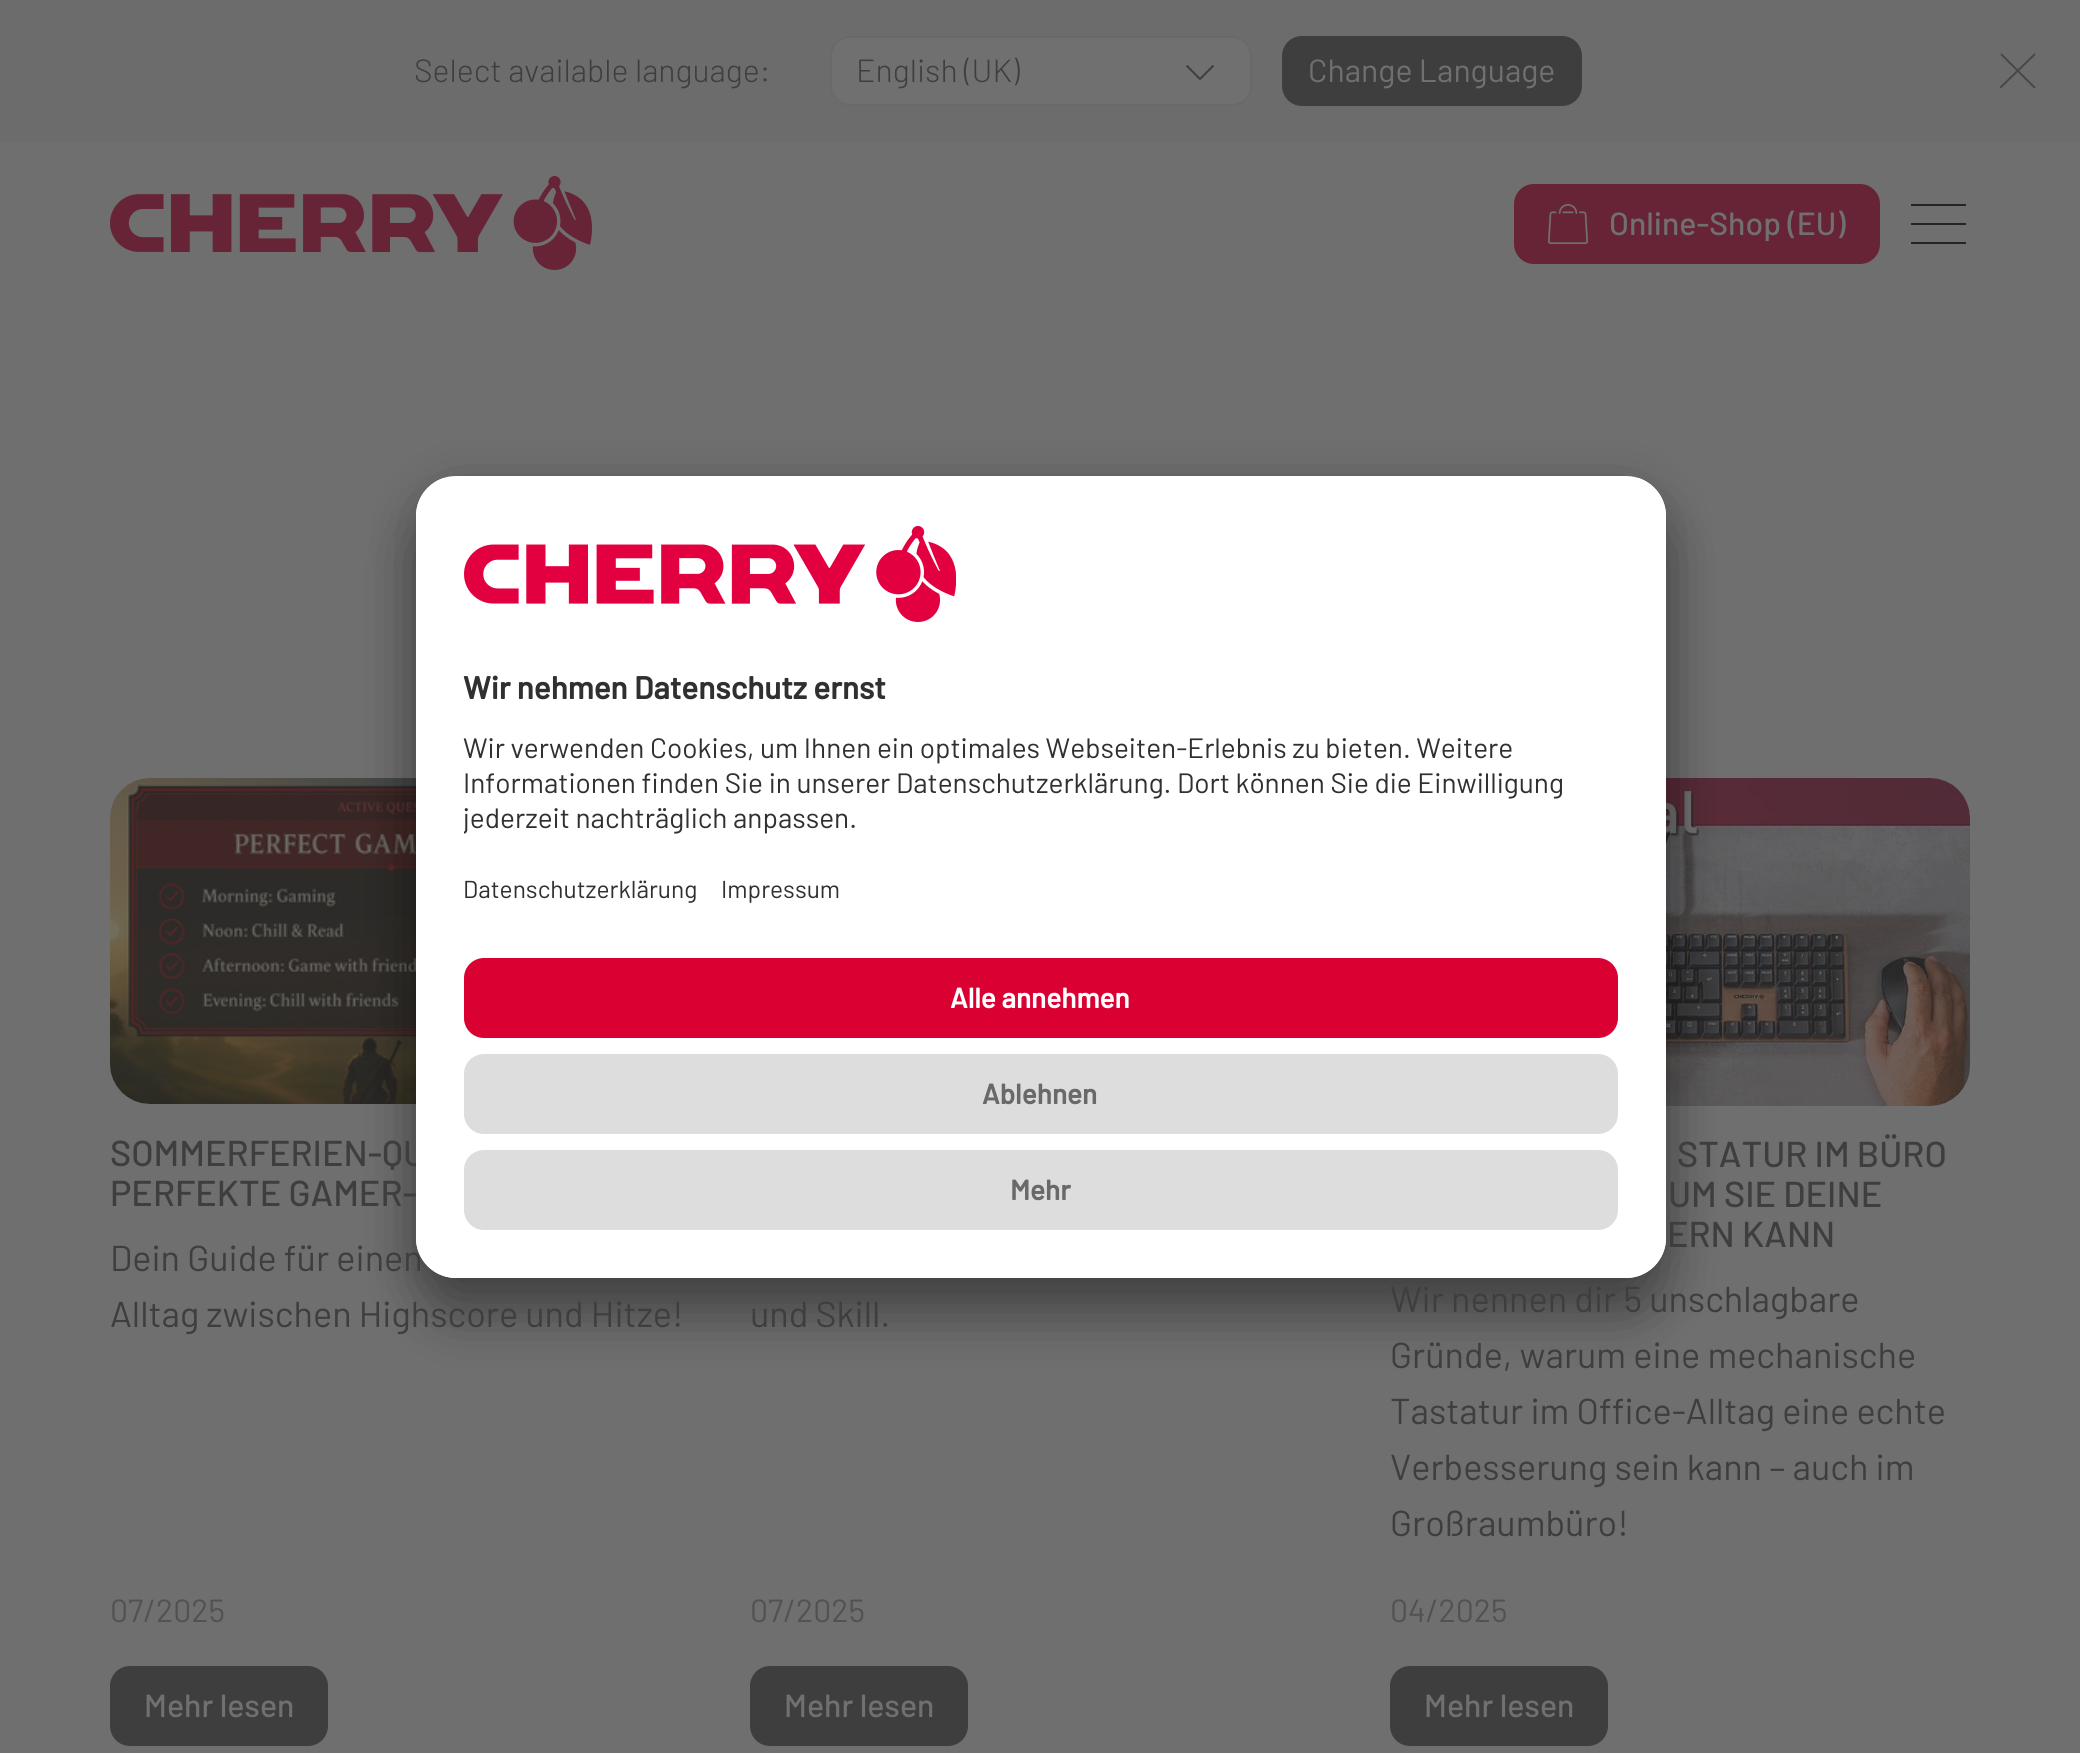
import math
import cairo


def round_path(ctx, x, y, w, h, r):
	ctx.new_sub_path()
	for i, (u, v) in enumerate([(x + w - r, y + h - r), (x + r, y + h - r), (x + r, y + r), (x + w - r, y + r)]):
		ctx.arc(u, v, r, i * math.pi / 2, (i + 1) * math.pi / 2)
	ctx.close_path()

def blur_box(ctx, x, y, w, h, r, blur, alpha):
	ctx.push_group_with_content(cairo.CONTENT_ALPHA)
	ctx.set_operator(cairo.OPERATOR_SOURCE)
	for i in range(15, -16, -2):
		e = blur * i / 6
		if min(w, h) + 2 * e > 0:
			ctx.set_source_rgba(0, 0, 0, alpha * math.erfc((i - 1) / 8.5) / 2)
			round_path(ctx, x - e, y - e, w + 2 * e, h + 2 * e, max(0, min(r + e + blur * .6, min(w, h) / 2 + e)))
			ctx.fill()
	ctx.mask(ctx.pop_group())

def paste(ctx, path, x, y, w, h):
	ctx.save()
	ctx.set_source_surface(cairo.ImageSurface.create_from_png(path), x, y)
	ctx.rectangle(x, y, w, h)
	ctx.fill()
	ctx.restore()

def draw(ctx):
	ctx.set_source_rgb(0.435, 0.435, 0.435)
	ctx.paint()
	ctx.set_source_rgb(0.424, 0.424, 0.424)
	ctx.rectangle(0, 0, 2080, 142)
	ctx.fill()
	ctx.select_font_face('Barlow Light')
	ctx.set_font_size(32)
	ctx.set_source_rgb(0.243, 0.243, 0.247)
	ctx.move_to(414, 82)
	ctx.show_text('Select available language:')
	ctx.set_source_rgb(0.439, 0.439, 0.439)
	round_path(ctx, 830, 36, 422, 70, 20)
	ctx.fill()
	ctx.new_path()
	ctx.move_to(1186.5, 65.5)
	ctx.line_to(1200, 79)
	ctx.line_to(1213.5, 65.5)
	ctx.set_source_rgb(0.243, 0.243, 0.247)
	ctx.stroke()
	round_path(ctx, 831, 37, 420, 68, 19)
	ctx.set_source_rgb(0.412, 0.412, 0.412)
	ctx.stroke()
	ctx.set_source_rgb(0.243, 0.243, 0.247)
	ctx.move_to(856, 82)
	ctx.show_text('English (UK)')
	round_path(ctx, 1283, 37, 298, 68, 19)
	ctx.fill_preserve()
	ctx.stroke()
	ctx.select_font_face('Barlow')
	ctx.set_source_rgb(0.439, 0.439, 0.439)
	ctx.move_to(1308, 82)
	ctx.show_text('Change Language')
	ctx.save()
	ctx.rectangle(2000, 52, 36, 36)
	ctx.clip()
	ctx.new_path()
	ctx.move_to(2001, 54)
	ctx.line_to(2035, 88)
	ctx.move_to(2000, 88)
	ctx.line_to(2035, 54)
	ctx.set_source_rgb(0.282, 0.282, 0.282)
	ctx.stroke()
	ctx.restore()
	paste(ctx, 'media/1.png', 110, 176, 482, 94)
	ctx.set_source_rgb(0.408, 0.141, 0.216)
	round_path(ctx, 1515, 185, 364, 78, 19)
	ctx.fill_preserve()
	ctx.stroke()
	paste(ctx, 'media/2.png', 1548, 204, 40, 40)
	ctx.select_font_face('Barlow Medium')
	ctx.set_source_rgb(0.439, 0.439, 0.439)
	ctx.move_to(1609, 235)
	ctx.show_text('Online-Shop (EU)')
	ctx.set_source_rgb(0.141, 0.141, 0.141)
	ctx.rectangle(1911, 204, 55, 2)
	ctx.rectangle(1911, 223, 55, 2)
	ctx.rectangle(1911, 242, 55, 2)
	ctx.fill()
	paste(ctx, 'media/4.png', 110, 778, 306, 326)
	paste(ctx, 'media/5.png', 1666, 778, 304, 328)
	ctx.set_source_rgb(0, 0, 0)
	blur_box(ctx, 416, 516, 1250, 802, 40, 28, 0.3)
	blur_box(ctx, 416, 486, 1250, 802, 40, 26, 0.22)
	ctx.set_font_size(36)
	ctx.set_source_rgb(0.243, 0.243, 0.247)
	ctx.move_to(110, 1166)
	ctx.show_text('SOMMERFERIEN-QU')
	ctx.select_font_face('Barlow')
	ctx.move_to(110, 1271)
	ctx.show_text('Dein Guide für einen')
	ctx.set_source_rgb(1, 1, 1)
	round_path(ctx, 416, 476, 1250, 802, 40)
	ctx.fill()
	ctx.save()
	round_path(ctx, 416, 476, 1250, 802, 40)
	ctx.clip()
	ctx.new_path()
	ctx.move_to(456, 476)
	ctx.line_to(1626, 476)
	ctx.curve_to(1648, 476, 1666, 494, 1666, 516)
	ctx.line_to(1666, 934)
	ctx.line_to(416, 934)
	ctx.line_to(416, 516)
	ctx.curve_to(416, 494, 434, 476, 456, 476)
	ctx.close_path()
	ctx.clip()
	ctx.rectangle(416, 478, 1250, 456)
	ctx.fill()
	ctx.restore()
	paste(ctx, 'media/3.png', 464, 526, 492, 96)
	ctx.select_font_face('Barlow', cairo.FONT_SLANT_NORMAL, cairo.FONT_WEIGHT_BOLD)
	ctx.set_font_size(31.5)
	ctx.set_source_rgb(0.188, 0.188, 0.188)
	ctx.move_to(463, 699)
	ctx.show_text('Wir nehmen Datenschutz ernst')
	ctx.select_font_face('Barlow')
	ctx.set_font_size(28)
	ctx.move_to(463, 758)
	ctx.show_text('Wir verwenden Cookies, um Ihnen ein optimales Webseiten-Erlebnis zu bieten. Weitere')
	ctx.move_to(463, 793)
	ctx.show_text('Informationen finden Sie in unserer Datenschutzerklärung. Dort können Sie die Einwilligung')
	ctx.save()
	ctx.rectangle(464, 722, 1154, 120)
	ctx.clip()
	ctx.move_to(463, 828)
	ctx.show_text('jederzeit nachträglich anpassen.')
	ctx.restore()
	ctx.set_font_size(24.5)
	ctx.move_to(463, 898)
	ctx.show_text('Datenschutzerklärung')
	ctx.move_to(721, 898)
	ctx.show_text('Impressum')
	ctx.set_source_rgb(1, 1, 1)
	ctx.new_path()
	ctx.move_to(416, 934)
	ctx.line_to(1666, 934)
	ctx.line_to(1666, 1238)
	ctx.curve_to(1666, 1260, 1648, 1278, 1626, 1278)
	ctx.line_to(456, 1278)
	ctx.curve_to(434, 1278, 416, 1260, 416, 1238)
	ctx.close_path()
	ctx.fill()
	ctx.set_source_rgb(0.859, 0, 0.196)
	round_path(ctx, 464, 958, 1154, 80, 20)
	ctx.fill()
	ctx.select_font_face('Barlow', cairo.FONT_SLANT_NORMAL, cairo.FONT_WEIGHT_BOLD)
	ctx.set_font_size(28)
	ctx.set_source_rgb(1, 1, 1)
	ctx.move_to(950, 1008)
	ctx.show_text('Alle annehmen')
	ctx.set_source_rgb(0.867, 0.867, 0.867)
	round_path(ctx, 464, 1054, 1154, 80, 20)
	ctx.fill()
	ctx.set_source_rgb(0.412, 0.412, 0.412)
	ctx.move_to(982, 1104)
	ctx.show_text('Ablehnen')
	ctx.set_source_rgb(0.867, 0.867, 0.867)
	round_path(ctx, 464, 1150, 1154, 80, 20)
	ctx.fill()
	ctx.set_source_rgb(0.412, 0.412, 0.412)
	ctx.move_to(1010, 1200)
	ctx.show_text('Mehr')
	ctx.select_font_face('Barlow Medium')
	ctx.set_font_size(36)
	ctx.set_source_rgb(0.243, 0.243, 0.247)
	ctx.move_to(110, 1206)
	ctx.show_text('PERFEKTE GAMER-')
	ctx.select_font_face('Barlow')
	ctx.move_to(110, 1327)
	ctx.show_text('Alltag zwischen Highscore und Hitze!')
	ctx.set_font_size(32)
	ctx.set_source_rgb(0.322, 0.322, 0.322)
	ctx.move_to(110, 1622)
	ctx.show_text('07/2025')
	ctx.set_source_rgb(0.243, 0.243, 0.247)
	round_path(ctx, 111, 1667, 216, 78, 19)
	ctx.fill_preserve()
	ctx.stroke()
	ctx.select_font_face('Barlow Medium')
	ctx.set_source_rgb(0.439, 0.439, 0.439)
	ctx.move_to(144, 1717)
	ctx.show_text('Mehr lesen')
	ctx.select_font_face('Barlow')
	ctx.set_font_size(36)
	ctx.set_source_rgb(0.243, 0.243, 0.247)
	ctx.move_to(750, 1327)
	ctx.show_text('und Skill.')
	ctx.set_font_size(32)
	ctx.set_source_rgb(0.322, 0.322, 0.322)
	ctx.move_to(750, 1622)
	ctx.show_text('07/2025')
	ctx.set_source_rgb(0.243, 0.243, 0.247)
	round_path(ctx, 751, 1667, 216, 78, 19)
	ctx.fill_preserve()
	ctx.stroke()
	ctx.select_font_face('Barlow Medium')
	ctx.set_source_rgb(0.439, 0.439, 0.439)
	ctx.move_to(784, 1717)
	ctx.show_text('Mehr lesen')
	ctx.set_font_size(36)
	ctx.set_source_rgb(0.243, 0.243, 0.247)
	for x, y, s in [
		(1677, 1167, 'STATUR IM BÜRO'),
		(1668, 1207, 'UM SIE DEINE'),
		(1667, 1247, 'ERN KANN'),
	]:
		ctx.move_to(x, y)
		ctx.show_text(s)
	ctx.select_font_face('Barlow')
	for x, y, s in [
		(1390, 1312, 'Wir nennen dir 5 unschlagbare'),
		(1390, 1368, 'Gründe, warum eine mechanische'),
		(1390, 1424, 'Tastatur im Office-Alltag eine echte'),
		(1390, 1480, 'Verbesserung sein kann – auch im'),
		(1390, 1536, 'Großraumbüro!'),
	]:
		ctx.move_to(x, y)
		ctx.show_text(s)
	ctx.set_font_size(32)
	ctx.set_source_rgb(0.322, 0.322, 0.322)
	ctx.move_to(1390, 1622)
	ctx.show_text('04/2025')
	ctx.set_source_rgb(0.243, 0.243, 0.247)
	round_path(ctx, 1391, 1667, 216, 78, 19)
	ctx.fill_preserve()
	ctx.stroke()
	ctx.select_font_face('Barlow Medium')
	ctx.set_source_rgb(0.439, 0.439, 0.439)
	ctx.move_to(1424, 1717)
	ctx.show_text('Mehr lesen')


surface = cairo.ImageSurface(cairo.FORMAT_RGB24, 2080, 1753)
ctx = cairo.Context(surface)
options = cairo.FontOptions()
options.set_hint_metrics(cairo.HINT_METRICS_OFF)
options.set_hint_style(cairo.HINT_STYLE_NONE)
ctx.set_font_options(options)
ctx.set_miter_limit(4)
draw(ctx)
surface.write_to_png('image.png')
